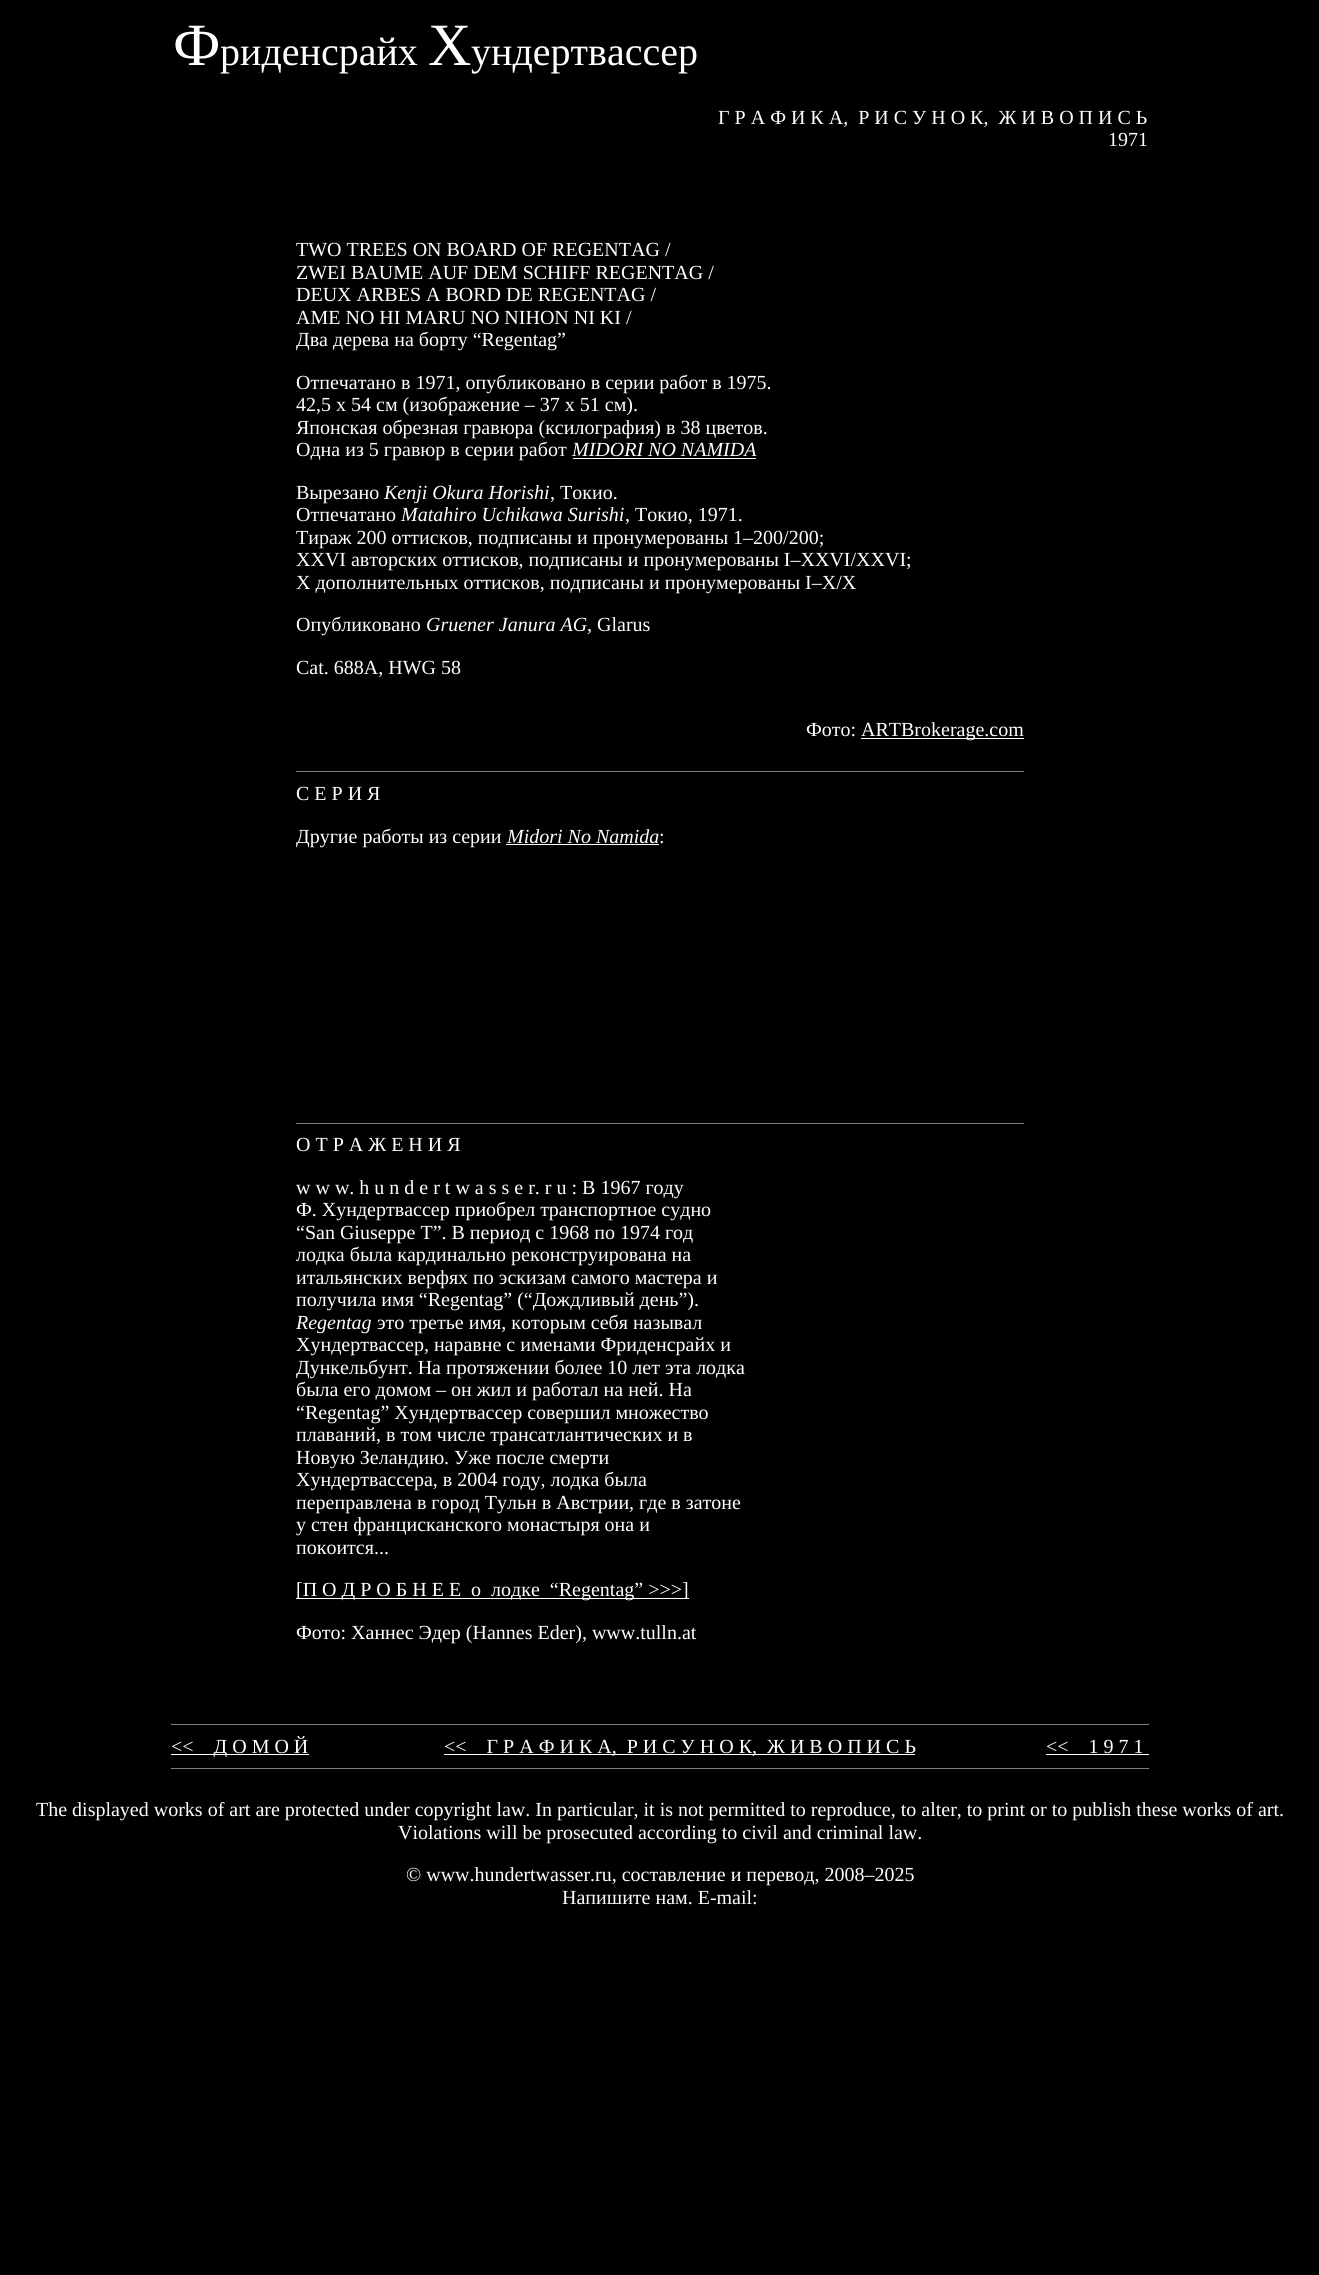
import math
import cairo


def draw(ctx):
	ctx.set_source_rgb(0, 0, 0)
	ctx.paint()
	ctx.select_font_face('Liberation Serif')
	ctx.set_font_size(60)
	ctx.set_source_rgb(1, 1, 1)
	ctx.move_to(173, 65)
	ctx.show_text('Ф')
	ctx.set_font_size(40)
	ctx.move_to(220, 65)
	ctx.show_text('риденсрайх')
	ctx.set_font_size(60)
	ctx.move_to(428, 65)
	ctx.show_text('Х')
	ctx.set_font_size(40)
	ctx.move_to(471, 65)
	ctx.show_text('ундертвассер')
	ctx.set_font_size(20)
	for x, y, s in [
		(718, 124, 'Г Р А Ф И К А,  Р И С У Н О К,  Ж И В О П И С Ь'),
		(1108, 146, '1971'),
		(296, 256, 'TWO TREES ON BOARD OF REGENTAG /'),
		(296, 279, 'ZWEI BAUME AUF DEM SCHIFF REGENTAG /'),
		(296, 301, 'DEUX ARBES A BORD DE REGENTAG /'),
		(296, 324, 'AME NO HI MARU NO NIHON NI KI /'),
		(296, 346, 'Два дерева на борту “Regentag”'),
		(296, 389, 'Отпечатано в 1971, опубликовано в серии работ в 1975.'),
		(296, 411, '42,5 х 54 см (изображение – 37 х 51 см).'),
		(296, 434, 'Японская обрезная гравюра (ксилография) в 38 цветов.'),
		(296, 456, 'Одна из 5 гравюр в серии работ'),
	]:
		ctx.move_to(x, y)
		ctx.show_text(s)
	ctx.select_font_face('Liberation Serif', cairo.FONT_SLANT_ITALIC)
	ctx.move_to(572, 456)
	ctx.show_text('MIDORI NO NAMIDA')
	ctx.rectangle(573, 458, 183, 1)
	ctx.fill()
	ctx.select_font_face('Liberation Serif')
	ctx.move_to(296, 499)
	ctx.show_text('Вырезано')
	ctx.select_font_face('Liberation Serif', cairo.FONT_SLANT_ITALIC)
	ctx.move_to(384, 499)
	ctx.show_text('Kenji Okura Horishi')
	ctx.select_font_face('Liberation Serif')
	ctx.move_to(550, 499)
	ctx.show_text(', Токио.')
	ctx.move_to(296, 521)
	ctx.show_text('Отпечатано')
	ctx.select_font_face('Liberation Serif', cairo.FONT_SLANT_ITALIC)
	ctx.move_to(401, 521)
	ctx.show_text('Matahiro Uchikawa Surishi')
	ctx.select_font_face('Liberation Serif')
	for x, y, s in [
		(625, 521, ', Токио, 1971.'),
		(296, 544, 'Тираж 200 оттисков, подписаны и пронумерованы 1–200/200;'),
		(296, 566, 'XXVI авторских оттисков, подписаны и пронумерованы I–XXVI/XXVI;'),
		(296, 589, 'X дополнительных оттисков, подписаны и пронумерованы I–X/X'),
		(296, 631, 'Опубликовано'),
	]:
		ctx.move_to(x, y)
		ctx.show_text(s)
	ctx.select_font_face('Liberation Serif', cairo.FONT_SLANT_ITALIC)
	ctx.move_to(426, 631)
	ctx.show_text('Gruener Janura AG')
	ctx.select_font_face('Liberation Serif')
	for x, y, s in [
		(587, 631, ', Glarus'),
		(296, 674, 'Cat. 688A, HWG 58'),
		(806, 736, 'Фото:'),
	]:
		ctx.move_to(x, y)
		ctx.show_text(s)
	ctx.rectangle(861, 738, 163, 1)
	ctx.fill()
	ctx.move_to(861, 736)
	ctx.show_text('ARTBrokerage.com')
	ctx.set_source_rgb(0.502, 0.502, 0.502)
	ctx.rectangle(296, 771, 728, 1)
	ctx.fill()
	ctx.set_source_rgb(1, 1, 1)
	ctx.move_to(296, 800)
	ctx.show_text('С Е Р И Я')
	ctx.move_to(296, 843)
	ctx.show_text('Другие работы из серии')
	ctx.select_font_face('Liberation Serif', cairo.FONT_SLANT_ITALIC)
	ctx.move_to(507, 843)
	ctx.show_text('Midori No Namida')
	ctx.rectangle(506, 844, 153, 1)
	ctx.fill()
	ctx.select_font_face('Liberation Serif')
	ctx.move_to(659, 843)
	ctx.show_text(':')
	ctx.set_source_rgb(0.502, 0.502, 0.502)
	ctx.rectangle(296, 1123, 728, 1)
	ctx.fill()
	ctx.set_source_rgb(1, 1, 1)
	for x, y, s in [
		(296, 1151, 'О Т Р А Ж Е Н И Я'),
		(296, 1194, 'w w w. h u n d e r t w a s s e r. r u : В 1967 году'),
		(296, 1216, 'Ф. Хундертвассер приобрел транспортное судно'),
		(296, 1239, '“San Giuseppe T”. В период с 1968 по 1974 год'),
		(296, 1261, 'лодка была кардинально реконструирована на'),
		(296, 1284, 'итальянских верфях по эскизам самого мастера и'),
		(296, 1306, 'получила имя “Regentag” (“Дождливый день”).'),
	]:
		ctx.move_to(x, y)
		ctx.show_text(s)
	ctx.select_font_face('Liberation Serif', cairo.FONT_SLANT_ITALIC)
	ctx.move_to(296, 1329)
	ctx.show_text('Regentag')
	ctx.select_font_face('Liberation Serif')
	for x, y, s in [
		(377, 1329, 'это третье имя, которым себя называл'),
		(296, 1351, 'Хундертвассер, наравне с именами Фриденсрайх и'),
		(296, 1374, 'Дункельбунт. На протяжении более 10 лет эта лодка'),
		(296, 1396, 'была его домом – он жил и работал на ней. На'),
		(296, 1419, '“Regentag” Хундертвассер совершил множество'),
		(296, 1441, 'плаваний, в том числе трансатлантических и в'),
		(296, 1464, 'Новую Зеландию. Уже после смерти'),
		(296, 1486, 'Хундертвассера, в 2004 году, лодка была'),
		(296, 1509, 'переправлена в город Тульн в Австрии, где в затоне'),
		(296, 1531, 'у стен францисканского монастыря она и'),
		(296, 1554, 'покоится...'),
	]:
		ctx.move_to(x, y)
		ctx.show_text(s)
	ctx.rectangle(296, 1598, 393, 1)
	ctx.fill()
	ctx.move_to(296, 1596)
	ctx.show_text('[П О Д Р О Б Н Е Е  о  лодке  “Regentag” >>>]')
	ctx.move_to(296, 1639)
	ctx.show_text('Фото: Ханнес Эдер (Hannes Eder), www.tulln.at')
	ctx.set_source_rgb(0.502, 0.502, 0.502)
	ctx.rectangle(171, 1724, 978, 1)
	ctx.fill()
	ctx.set_source_rgb(1, 1, 1)
	ctx.rectangle(171, 1754, 138, 1)
	ctx.fill()
	ctx.move_to(171, 1753)
	ctx.show_text('<<    Д О М О Й')
	ctx.rectangle(444, 1754, 471, 1)
	ctx.fill()
	ctx.move_to(444, 1753)
	ctx.show_text('<<    Г Р А Ф И К А,  Р И С У Н О К,  Ж И В О П И С Ь')
	ctx.move_to(1046, 1753)
	ctx.show_text('<<    1 9 7 1')
	ctx.rectangle(1046, 1754, 103, 1)
	ctx.fill()
	ctx.set_source_rgb(0.502, 0.502, 0.502)
	ctx.rectangle(171, 1768, 978, 1)
	ctx.fill()
	ctx.set_source_rgb(1, 1, 1)
	for x, y, s in [
		(36, 1816, 'The displayed works of art are protected under copyright law. In particular, it is not permitted to reproduce, to alter, to print or to publish these works of art.'),
		(398, 1839, 'Violations will be prosecuted according to civil and criminal law.'),
		(406, 1881, '© www.hundertwasser.ru, составление и перевод, 2008–2025'),
		(562, 1904, 'Напишите нам. E-mail:'),
	]:
		ctx.move_to(x, y)
		ctx.show_text(s)


surface = cairo.ImageSurface(cairo.FORMAT_RGB24, 1319, 2275)
ctx = cairo.Context(surface)
options = cairo.FontOptions()
options.set_hint_metrics(cairo.HINT_METRICS_OFF)
options.set_hint_style(cairo.HINT_STYLE_NONE)
ctx.set_font_options(options)
ctx.set_miter_limit(4)
draw(ctx)
surface.write_to_png('image.png')
